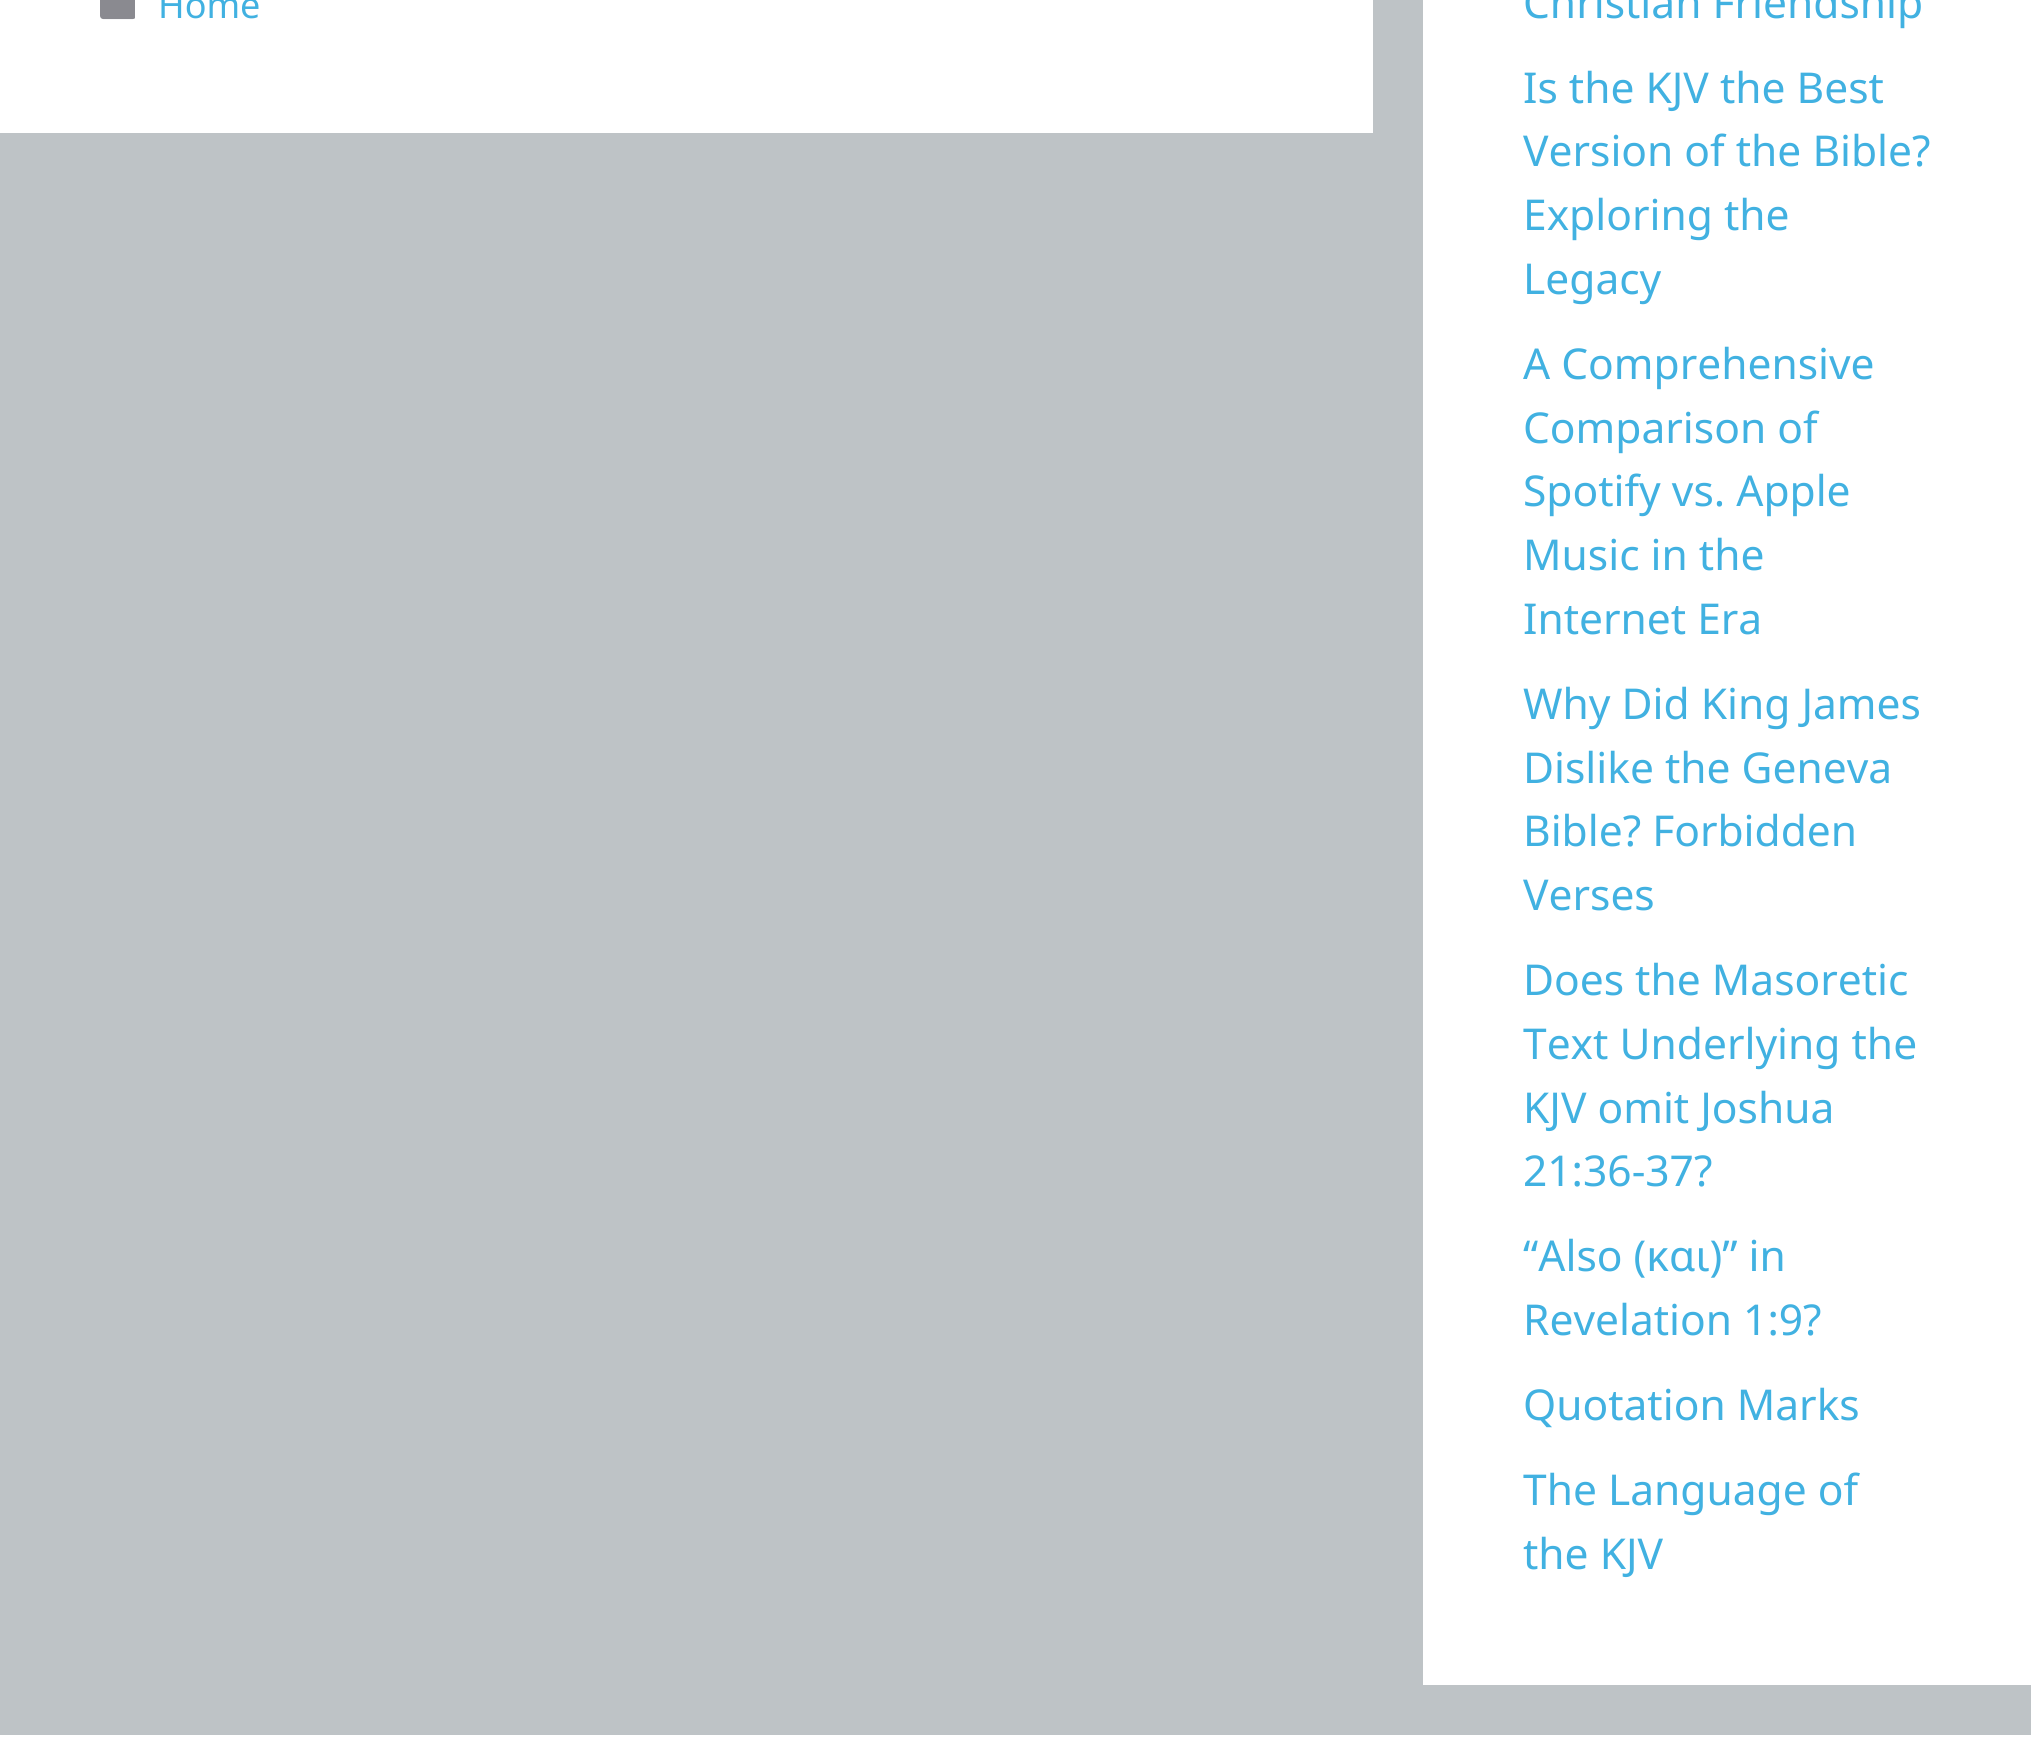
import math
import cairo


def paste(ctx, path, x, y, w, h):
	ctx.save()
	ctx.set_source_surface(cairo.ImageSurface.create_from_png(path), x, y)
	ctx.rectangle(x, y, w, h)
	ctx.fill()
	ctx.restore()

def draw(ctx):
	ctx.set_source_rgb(0.745, 0.765, 0.776)
	ctx.paint()
	ctx.set_source_rgb(1, 1, 1)
	ctx.rectangle(0, 0, 1373, 133)
	ctx.fill()
	paste(ctx, 'media/1.png', 100, 0, 35, 20)
	ctx.select_font_face('Noto Sans')
	ctx.set_font_size(36)
	ctx.set_source_rgb(0.255, 0.694, 0.882)
	ctx.move_to(158, 18)
	ctx.show_text('Home')
	ctx.set_source_rgb(1, 1, 1)
	ctx.rectangle(1423, 0, 608, 1685)
	ctx.fill()
	ctx.set_font_size(42.5)
	ctx.set_source_rgb(0.255, 0.694, 0.882)
	for x, y, s in [
		(1523, 18, 'Christian Friendship'),
		(1523, 103, 'Is the KJV the Best'),
		(1523, 166, 'Version of the Bible?'),
		(1523, 230, 'Exploring the'),
		(1523, 294, 'Legacy'),
		(1523, 379, 'A Comprehensive'),
		(1523, 443, 'Comparison of'),
		(1523, 506, 'Spotify vs. Apple'),
		(1523, 570, 'Music in the'),
		(1523, 634, 'Internet Era'),
		(1523, 719, 'Why Did King James'),
		(1523, 783, 'Dislike the Geneva'),
		(1523, 846, 'Bible? Forbidden'),
		(1523, 910, 'Verses'),
		(1523, 995, 'Does the Masoretic'),
		(1523, 1059, 'Text Underlying the'),
		(1523, 1123, 'KJV omit Joshua'),
		(1523, 1186, '21:36-37?'),
		(1523, 1271, '“Also (και)” in'),
		(1523, 1335, 'Revelation 1:9?'),
		(1523, 1420, 'Quotation Marks'),
		(1523, 1505, 'The Language of'),
		(1523, 1569, 'the KJV'),
	]:
		ctx.move_to(x, y)
		ctx.show_text(s)
	ctx.set_source_rgb(1, 1, 1)
	ctx.rectangle(0, 1735, 2031, 27)
	ctx.fill()


surface = cairo.ImageSurface(cairo.FORMAT_RGB24, 2031, 1762)
ctx = cairo.Context(surface)
options = cairo.FontOptions()
options.set_hint_metrics(cairo.HINT_METRICS_OFF)
options.set_hint_style(cairo.HINT_STYLE_NONE)
ctx.set_font_options(options)
ctx.set_miter_limit(4)
draw(ctx)
surface.write_to_png('image.png')
